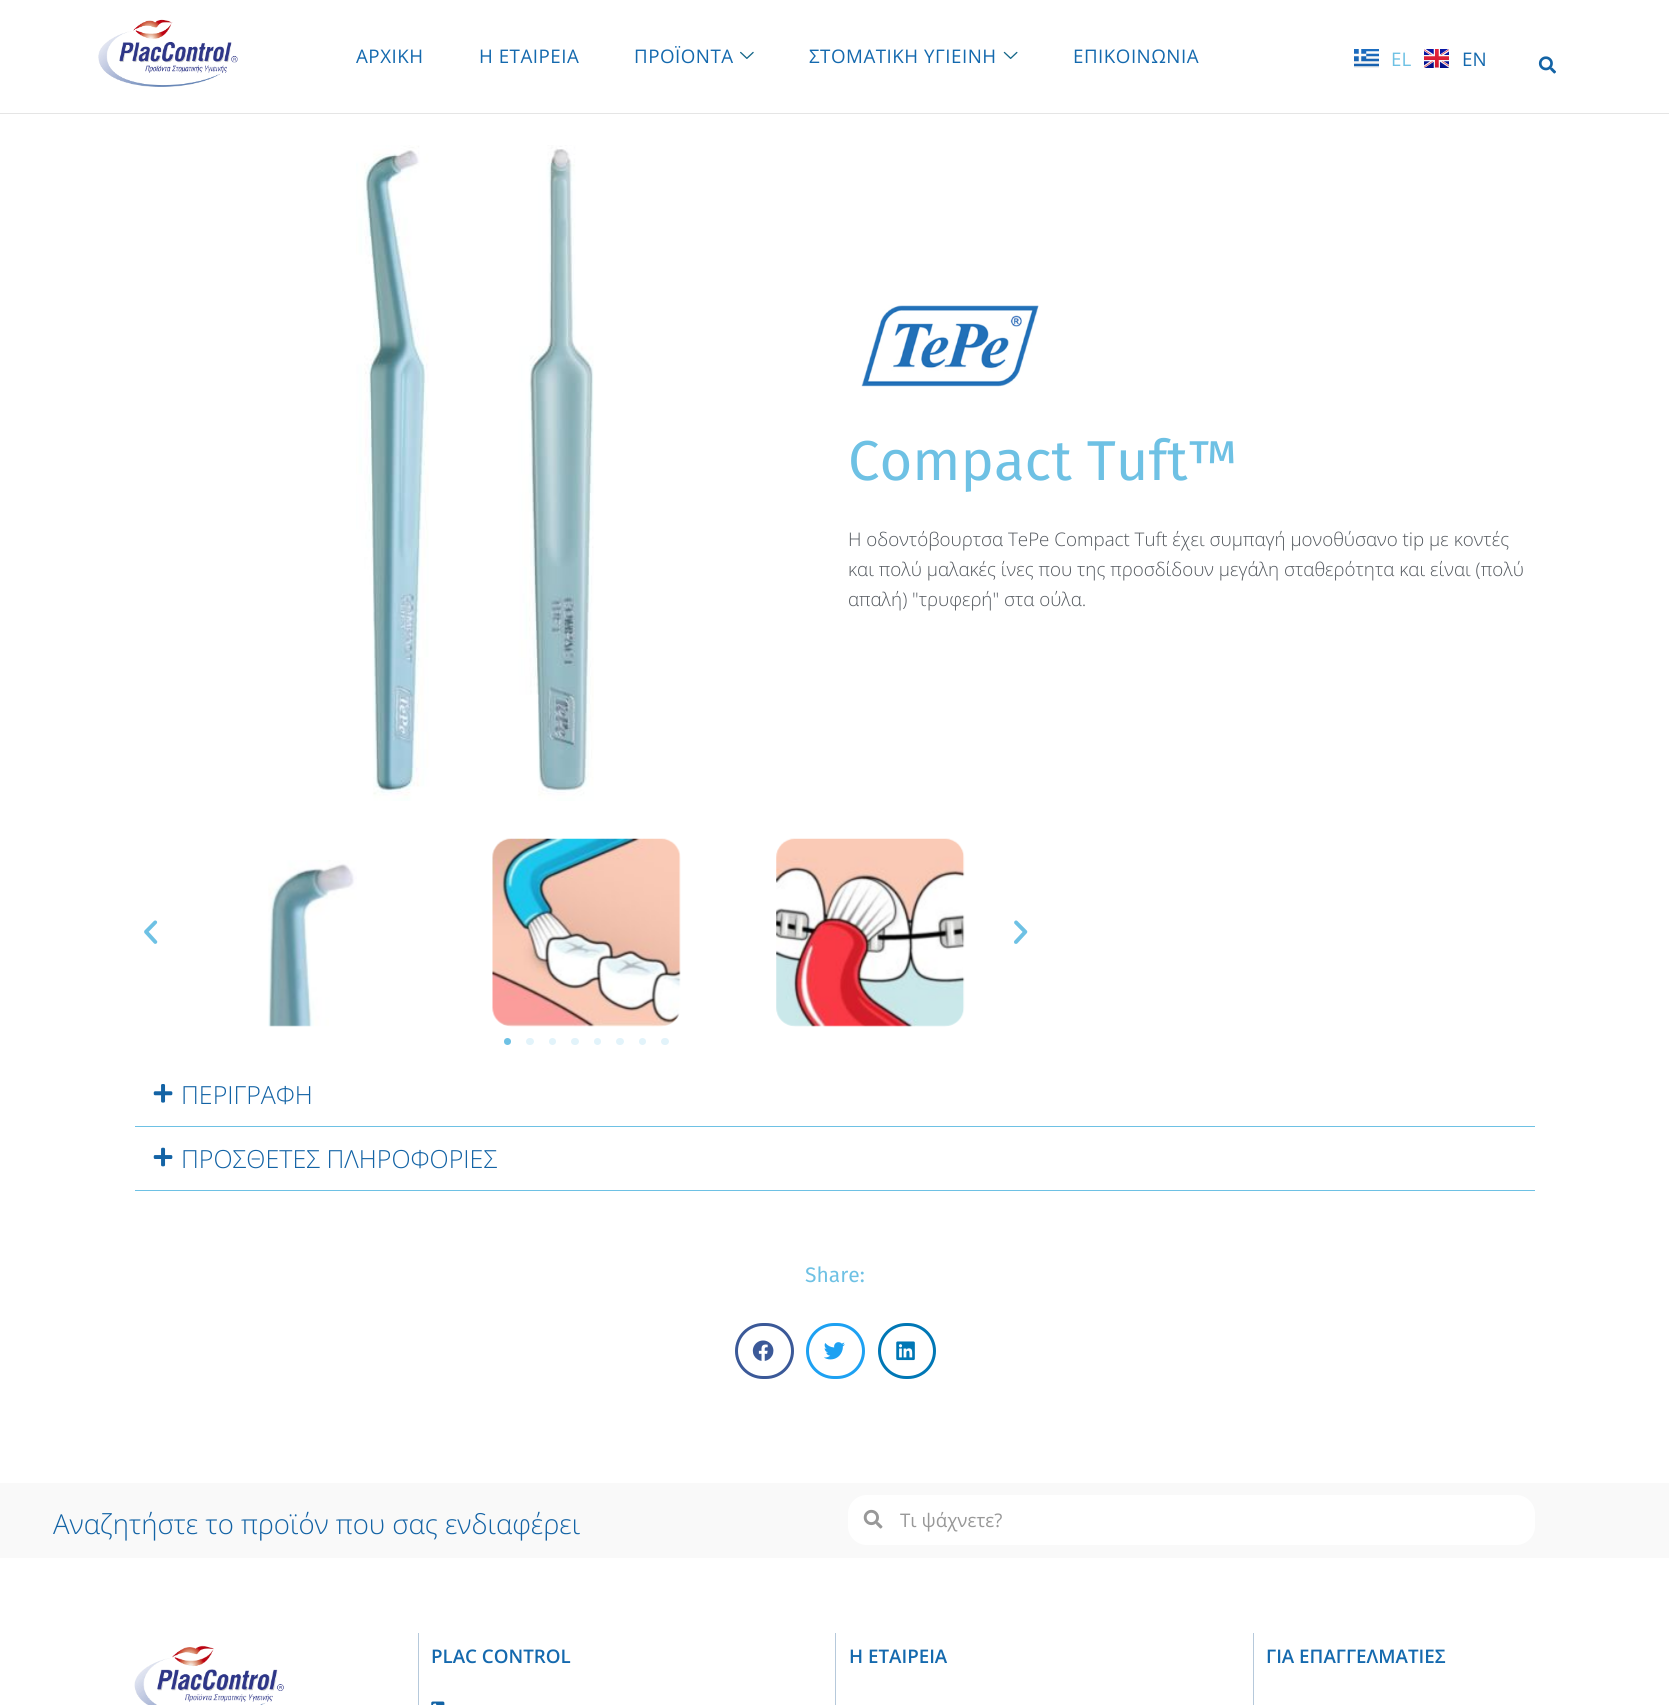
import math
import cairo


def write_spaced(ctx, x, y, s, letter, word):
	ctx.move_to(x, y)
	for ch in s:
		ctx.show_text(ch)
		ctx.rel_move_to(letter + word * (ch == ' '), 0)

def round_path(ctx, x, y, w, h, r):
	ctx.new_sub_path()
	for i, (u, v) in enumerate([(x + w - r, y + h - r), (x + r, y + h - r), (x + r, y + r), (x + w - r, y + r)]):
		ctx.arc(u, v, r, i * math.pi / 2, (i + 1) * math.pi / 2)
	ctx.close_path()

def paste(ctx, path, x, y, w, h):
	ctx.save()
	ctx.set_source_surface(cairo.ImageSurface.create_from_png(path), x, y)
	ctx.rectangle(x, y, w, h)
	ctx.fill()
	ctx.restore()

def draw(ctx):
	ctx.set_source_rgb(1, 1, 1)
	ctx.paint()
	paste(ctx, 'media/1.png', 98, 19, 140, 68)
	ctx.select_font_face('Open Sans')
	ctx.set_font_size(18.75)
	ctx.set_source_rgb(0.082, 0.412, 0.682)
	for x, y, s in [
		(356, 63, 'ΑΡΧΙΚΗ'),
		(479, 63, 'Η ΕΤΑΙΡΕΙΑ'),
		(634, 63, 'ΠΡΟΪΟΝΤΑ'),
	]:
		write_spaced(ctx, x, y, s, 0.5, 0)
	paste(ctx, 'media/2.png', 740, 51, 14, 8)
	write_spaced(ctx, 809, 63, 'ΣΤΟΜΑΤΙΚΗ ΥΓΙΕΙΝΗ', 0.5, 0)
	paste(ctx, 'media/3.png', 1003, 51, 15, 8)
	write_spaced(ctx, 1073, 63, 'ΕΠΙΚΟΙΝΩΝΙΑ', 0.5, 0)
	paste(ctx, 'media/4.png', 1354, 49, 25, 19)
	ctx.set_source_rgb(0.431, 0.757, 0.894)
	ctx.move_to(1391, 66)
	ctx.show_text('EL')
	paste(ctx, 'media/5.png', 1424, 49, 25, 19)
	ctx.set_source_rgb(0.082, 0.412, 0.682)
	ctx.move_to(1462, 66)
	ctx.show_text('EN')
	paste(ctx, 'media/6.png', 1538, 56, 18, 18)
	ctx.set_source_rgb(0.898, 0.898, 0.898)
	ctx.new_path()
	ctx.move_to(-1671, 114)
	ctx.line_to(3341, 114)
	ctx.line_to(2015, 113)
	ctx.line_to(-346, 113)
	ctx.close_path()
	ctx.fill()
	paste(ctx, 'media/7.png', 356, 145, 238, 656)
	paste(ctx, 'media/8.png', 861, 305, 178, 82)
	ctx.select_font_face('Fira Sans')
	ctx.set_font_size(56.25)
	ctx.set_source_rgb(0.431, 0.757, 0.894)
	ctx.move_to(848, 480)
	ctx.show_text('Compact Tuft™')
	ctx.select_font_face('Open Sans Light')
	ctx.set_font_size(18.75)
	ctx.set_source_rgb(0.329, 0.349, 0.373)
	for x, y, s in [
		(848, 546, 'Η οδοντόβουρτσα TePe Compact Tuft έχει συμπαγή μονοθύσανο tip με κοντές'),
		(848, 576, 'και πολύ μαλακές ίνες που της προσδίδουν μεγάλη σταθερότητα και είναι (πολύ'),
		(848, 606, 'απαλή) "τρυφερή" στα ούλα.'),
	]:
		ctx.move_to(x, y)
		ctx.show_text(s)
	paste(ctx, 'media/9.png', 144, 920, 14, 24)
	paste(ctx, 'media/10.png', 268, 860, 89, 167)
	paste(ctx, 'media/11.png', 492, 838, 189, 189)
	paste(ctx, 'media/12.png', 776, 838, 189, 189)
	paste(ctx, 'media/13.png', 1014, 920, 14, 24)
	ctx.set_source_rgb(0.431, 0.757, 0.894)
	ctx.arc(507.5, 1041.5, 3.5, 0, 2 * math.pi)
	ctx.fill()
	ctx.set_source_rgb(0.886, 0.953, 0.98)
	round_path(ctx, 526, 1038, 8, 7, 3.5)
	ctx.fill()
	ctx.arc(552.5, 1041.5, 3.5, 0, 2 * math.pi)
	ctx.fill()
	round_path(ctx, 571, 1038, 8, 7, 3.5)
	ctx.fill()
	ctx.arc(597.5, 1041.5, 3.5, 0, 2 * math.pi)
	ctx.fill()
	round_path(ctx, 616, 1038, 8, 7, 3.5)
	ctx.fill()
	ctx.arc(642.5, 1041.5, 3.5, 0, 2 * math.pi)
	ctx.fill()
	round_path(ctx, 661, 1038, 8, 7, 3.5)
	ctx.fill()
	ctx.set_source_rgb(0.431, 0.757, 0.894)
	ctx.rectangle(135, 1126, 1400, 1)
	ctx.fill()
	paste(ctx, 'media/14.png', 153, 1084, 20, 19)
	ctx.set_font_size(25)
	ctx.set_source_rgb(0.075, 0.388, 0.647)
	ctx.move_to(181, 1104)
	ctx.show_text('ΠΕΡΙΓΡΑΦΗ')
	ctx.set_source_rgb(0.431, 0.757, 0.894)
	ctx.rectangle(135, 1190, 1400, 1)
	ctx.fill()
	paste(ctx, 'media/15.png', 153, 1147, 20, 20)
	ctx.set_source_rgb(0.075, 0.388, 0.647)
	ctx.move_to(181, 1168)
	ctx.show_text('ΠΡΟΣΘΕΤΕΣ ΠΛΗΡΟΦΟΡΙΕΣ')
	ctx.select_font_face('Fira Sans')
	ctx.set_font_size(21)
	ctx.set_source_rgb(0.431, 0.757, 0.894)
	ctx.move_to(805, 1282)
	ctx.show_text('Share:')
	round_path(ctx, 736.5, 1324.5, 56, 53, 26.5)
	ctx.set_source_rgb(0.231, 0.349, 0.596)
	ctx.set_line_width(3)
	ctx.stroke()
	paste(ctx, 'media/16.png', 752, 1340, 22, 21)
	round_path(ctx, 807.5, 1324.5, 56, 53, 26.5)
	ctx.set_source_rgb(0.114, 0.631, 0.949)
	ctx.stroke()
	paste(ctx, 'media/17.png', 824, 1342, 21, 18)
	round_path(ctx, 879.5, 1324.5, 55, 53, 26.5)
	ctx.set_source_rgb(0, 0.467, 0.71)
	ctx.stroke()
	paste(ctx, 'media/18.png', 896, 1341, 19, 20)
	ctx.set_source_rgb(0.973, 0.973, 0.973)
	ctx.rectangle(0, 1483, 1669, 75)
	ctx.fill()
	ctx.select_font_face('Open Sans Light')
	ctx.set_font_size(27.5)
	ctx.set_source_rgb(0.075, 0.388, 0.647)
	ctx.move_to(53, 1534)
	ctx.show_text('Αναζητήστε το προϊόν που σας ενδιαφέρει')
	ctx.set_source_rgb(1, 1, 1)
	round_path(ctx, 848, 1495, 687, 50, 19)
	ctx.fill()
	paste(ctx, 'media/19.png', 863, 1509, 20, 20)
	ctx.select_font_face('Open Sans')
	ctx.set_font_size(18.75)
	ctx.set_source_rgb(0.596, 0.596, 0.596)
	ctx.move_to(900, 1527)
	ctx.show_text('Τι ψάχνετε?')
	paste(ctx, 'media/20.png', 134, 1645, 150, 60)
	ctx.set_source_rgb(0.714, 0.788, 0.859)
	ctx.rectangle(418, 1633, 1, 72)
	ctx.fill()
	ctx.select_font_face('Open Sans SemiBold')
	ctx.set_source_rgb(0.082, 0.412, 0.682)
	ctx.move_to(431, 1663)
	ctx.show_text('PLAC CONTROL')
	paste(ctx, 'media/21.png', 431, 1701, 14, 4)
	ctx.set_source_rgb(0.714, 0.788, 0.859)
	ctx.rectangle(835, 1633, 1, 72)
	ctx.fill()
	ctx.set_source_rgb(0.082, 0.412, 0.682)
	ctx.move_to(849, 1663)
	ctx.show_text('Η ΕΤΑΙΡΕΙΑ')
	ctx.set_source_rgb(0.714, 0.788, 0.859)
	ctx.rectangle(1253, 1633, 1, 72)
	ctx.fill()
	ctx.set_source_rgb(0.082, 0.412, 0.682)
	ctx.move_to(1266, 1663)
	ctx.show_text('ΓΙΑ ΕΠΑΓΓΕΛΜΑΤΙΕΣ')


surface = cairo.ImageSurface(cairo.FORMAT_RGB24, 1669, 1705)
ctx = cairo.Context(surface)
options = cairo.FontOptions()
options.set_hint_metrics(cairo.HINT_METRICS_OFF)
options.set_hint_style(cairo.HINT_STYLE_NONE)
ctx.set_font_options(options)
ctx.set_miter_limit(4)
draw(ctx)
surface.write_to_png('image.png')
